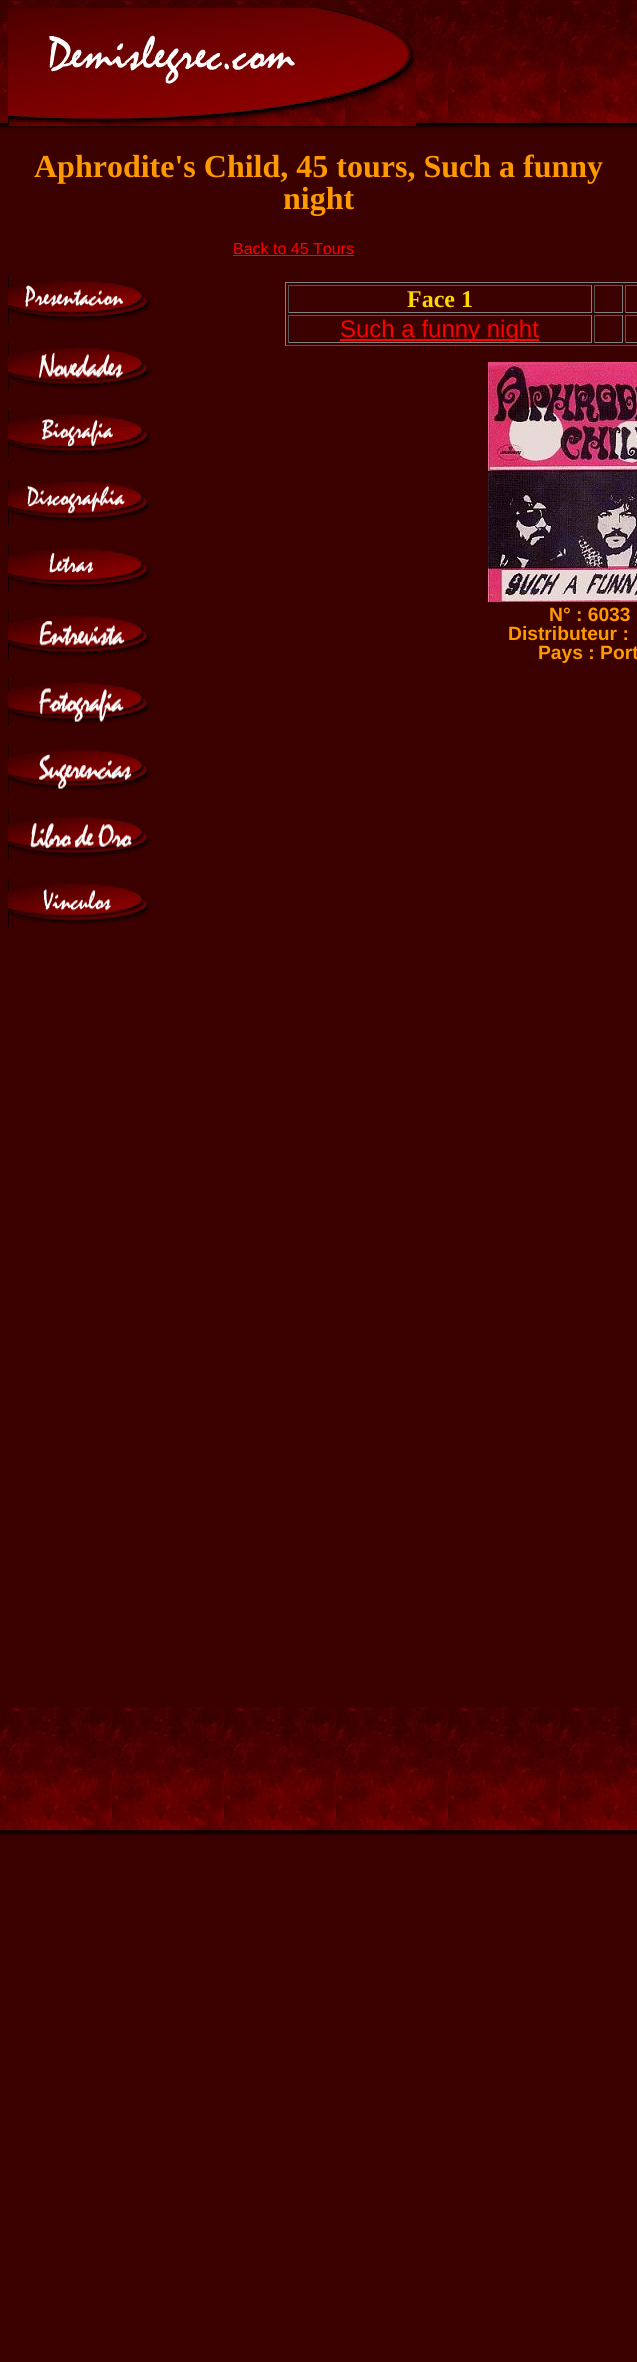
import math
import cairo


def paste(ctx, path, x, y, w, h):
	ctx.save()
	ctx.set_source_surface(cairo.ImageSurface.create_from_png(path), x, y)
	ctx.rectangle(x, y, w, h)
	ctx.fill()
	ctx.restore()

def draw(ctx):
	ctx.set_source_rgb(1, 1, 1)
	ctx.paint()
	paste(ctx, 'media/1.png', 0, 0, 637, 2362)
	paste(ctx, 'media/2.png', 8, 8, 408, 118)
	ctx.select_font_face('Liberation Serif', cairo.FONT_SLANT_NORMAL, cairo.FONT_WEIGHT_BOLD)
	ctx.set_font_size(32)
	ctx.set_source_rgb(1, 0.6, 0)
	ctx.move_to(34, 177)
	ctx.show_text('Aphrodite\'s Child, 45 tours, Such a funny')
	ctx.move_to(283, 209)
	ctx.show_text('night')
	paste(ctx, 'media/3.png', 8, 276, 144, 48)
	paste(ctx, 'media/4.png', 8, 343, 144, 48)
	paste(ctx, 'media/5.png', 8, 410, 146, 48)
	paste(ctx, 'media/6.png', 8, 477, 144, 48)
	paste(ctx, 'media/7.png', 8, 544, 144, 48)
	paste(ctx, 'media/8.png', 8, 611, 144, 48)
	paste(ctx, 'media/9.png', 8, 678, 144, 48)
	paste(ctx, 'media/10.png', 8, 745, 144, 48)
	paste(ctx, 'media/11.png', 8, 812, 144, 48)
	paste(ctx, 'media/12.png', 8, 879, 144, 48)
	ctx.select_font_face('Liberation Sans')
	ctx.set_font_size(16)
	ctx.set_source_rgb(1, 0, 0)
	ctx.move_to(233, 254)
	ctx.show_text('Back to 45 Tours')
	ctx.rectangle(233, 255, 121, 1)
	ctx.fill()
	ctx.set_source_rgb(0.502, 0.502, 0.502)
	ctx.rectangle(285, 282, 352, 1)
	ctx.fill()
	ctx.set_source_rgb(0.333, 0.333, 0.333)
	ctx.rectangle(285, 345, 352, 1)
	ctx.fill()
	ctx.set_source_rgb(0.502, 0.502, 0.502)
	ctx.rectangle(285, 282, 1, 64)
	ctx.fill()
	ctx.set_source_rgb(0.333, 0.333, 0.333)
	ctx.rectangle(288, 285, 304, 1)
	ctx.fill()
	ctx.set_source_rgb(0.502, 0.502, 0.502)
	ctx.rectangle(591, 285, 1, 28)
	ctx.rectangle(288, 312, 304, 1)
	ctx.fill()
	ctx.set_source_rgb(0.333, 0.333, 0.333)
	ctx.rectangle(288, 285, 1, 28)
	ctx.fill()
	ctx.select_font_face('Liberation Serif', cairo.FONT_SLANT_NORMAL, cairo.FONT_WEIGHT_BOLD)
	ctx.set_font_size(24)
	ctx.set_source_rgb(1, 0.843, 0)
	ctx.move_to(407, 307)
	ctx.show_text('Face 1')
	ctx.set_source_rgb(0.333, 0.333, 0.333)
	ctx.rectangle(594, 285, 29, 1)
	ctx.fill()
	ctx.set_source_rgb(0.502, 0.502, 0.502)
	ctx.rectangle(622, 285, 1, 28)
	ctx.rectangle(594, 312, 29, 1)
	ctx.fill()
	ctx.set_source_rgb(0.333, 0.333, 0.333)
	ctx.rectangle(594, 285, 1, 28)
	ctx.rectangle(625, 285, 12, 1)
	ctx.fill()
	ctx.set_source_rgb(0.502, 0.502, 0.502)
	ctx.rectangle(625, 312, 12, 1)
	ctx.fill()
	ctx.set_source_rgb(0.333, 0.333, 0.333)
	ctx.rectangle(625, 285, 1, 28)
	ctx.rectangle(288, 315, 304, 1)
	ctx.fill()
	ctx.set_source_rgb(0.502, 0.502, 0.502)
	ctx.rectangle(591, 315, 1, 28)
	ctx.rectangle(288, 342, 304, 1)
	ctx.fill()
	ctx.set_source_rgb(0.333, 0.333, 0.333)
	ctx.rectangle(288, 315, 1, 28)
	ctx.fill()
	ctx.set_source_rgb(1, 0, 0)
	ctx.rectangle(340, 339, 199, 2)
	ctx.fill()
	ctx.select_font_face('Liberation Sans')
	ctx.move_to(340, 337)
	ctx.show_text('Such a funny night')
	ctx.set_source_rgb(0.333, 0.333, 0.333)
	ctx.rectangle(594, 315, 29, 1)
	ctx.fill()
	ctx.set_source_rgb(0.502, 0.502, 0.502)
	ctx.rectangle(622, 315, 1, 28)
	ctx.rectangle(594, 342, 29, 1)
	ctx.fill()
	ctx.set_source_rgb(0.333, 0.333, 0.333)
	ctx.rectangle(594, 315, 1, 28)
	ctx.rectangle(625, 315, 12, 1)
	ctx.fill()
	ctx.set_source_rgb(0.502, 0.502, 0.502)
	ctx.rectangle(625, 342, 12, 1)
	ctx.fill()
	ctx.set_source_rgb(0.333, 0.333, 0.333)
	ctx.rectangle(625, 315, 1, 28)
	ctx.fill()
	paste(ctx, 'media/13.png', 488, 362, 149, 240)
	ctx.select_font_face('Liberation Sans', cairo.FONT_SLANT_NORMAL, cairo.FONT_WEIGHT_BOLD)
	ctx.set_font_size(19.25)
	ctx.set_source_rgb(1, 0.6, 0)
	for x, y, s in [
		(549, 621, 'N° : 6033'),
		(508, 640, 'Distributeur :'),
		(538, 659, 'Pays : Port'),
	]:
		ctx.move_to(x, y)
		ctx.show_text(s)


surface = cairo.ImageSurface(cairo.FORMAT_RGB24, 637, 2362)
ctx = cairo.Context(surface)
options = cairo.FontOptions()
options.set_hint_metrics(cairo.HINT_METRICS_OFF)
options.set_hint_style(cairo.HINT_STYLE_NONE)
ctx.set_font_options(options)
ctx.set_miter_limit(4)
draw(ctx)
surface.write_to_png('image.png')
